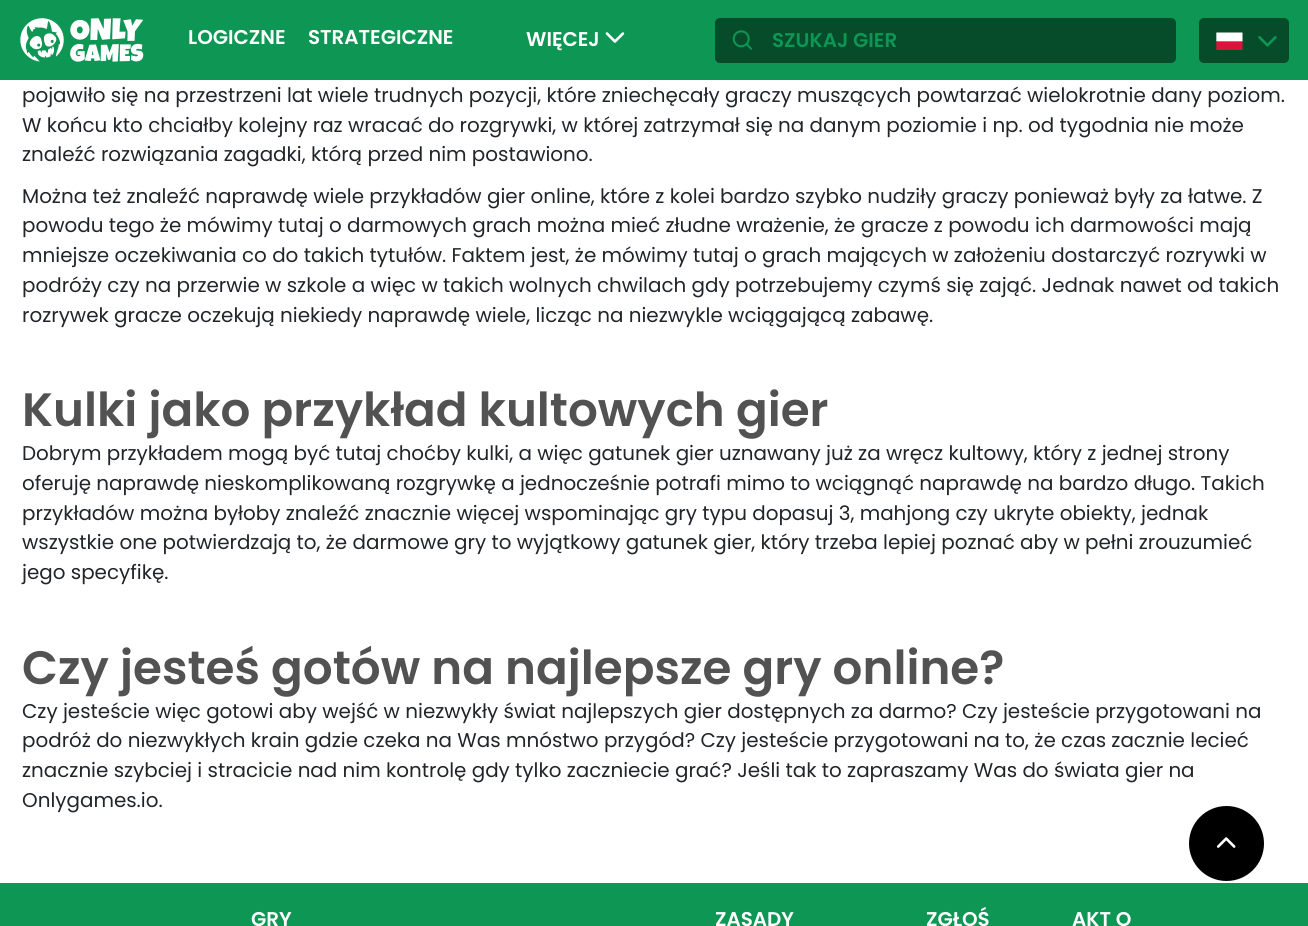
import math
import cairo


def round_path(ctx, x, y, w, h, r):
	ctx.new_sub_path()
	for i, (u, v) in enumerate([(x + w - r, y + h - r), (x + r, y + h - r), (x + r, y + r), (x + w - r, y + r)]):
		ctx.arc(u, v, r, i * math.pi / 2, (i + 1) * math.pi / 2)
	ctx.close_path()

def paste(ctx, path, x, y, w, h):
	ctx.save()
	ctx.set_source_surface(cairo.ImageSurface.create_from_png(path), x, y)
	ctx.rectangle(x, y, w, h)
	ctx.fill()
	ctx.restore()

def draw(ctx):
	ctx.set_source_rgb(1, 1, 1)
	ctx.paint()
	ctx.set_source_rgb(0.051, 0.588, 0.329)
	ctx.rectangle(0, 0, 1308, 80)
	ctx.fill()
	paste(ctx, 'media/1.png', 20, 18, 124, 44)
	ctx.select_font_face('Poppins SemiBold')
	ctx.set_font_size(19.9)
	ctx.set_source_rgb(1, 1, 1)
	for x, y, s in [
		(188, 44, 'LOGICZNE'),
		(308, 44, 'STRATEGICZNE'),
		(526, 46, 'WIĘCEJ'),
	]:
		ctx.move_to(x, y)
		ctx.show_text(s)
	paste(ctx, 'media/2.png', 605, 32, 20, 11)
	ctx.set_source_rgb(0.027, 0.294, 0.165)
	round_path(ctx, 715, 18, 461, 45, 5)
	ctx.fill()
	paste(ctx, 'media/3.png', 732, 30, 21, 20)
	ctx.set_source_rgb(0.051, 0.588, 0.329)
	ctx.move_to(772, 47)
	ctx.show_text('SZUKAJ GIER')
	ctx.set_source_rgb(0.027, 0.294, 0.165)
	round_path(ctx, 1199, 18, 90, 45, 5)
	ctx.fill()
	paste(ctx, 'media/4.png', 1216, 32, 27, 18)
	paste(ctx, 'media/5.png', 1258, 36, 19, 11)
	ctx.select_font_face('Poppins')
	ctx.set_source_rgb(0.129, 0.145, 0.161)
	for x, y, s in [
		(22, 102, 'pojawiło się na przestrzeni lat wiele trudnych pozycji, które zniechęcały graczy muszących powtarzać wielokrotnie dany poziom.'),
		(22, 132, 'W końcu kto chciałby kolejny raz wracać do rozgrywki, w której zatrzymał się na danym poziomie i np. od tygodnia nie może'),
		(22, 161, 'znaleźć rozwiązania zagadki, którą przed nim postawiono.'),
		(22, 203, 'Można też znaleźć naprawdę wiele przykładów gier online, które z kolei bardzo szybko nudziły graczy ponieważ były za łatwe. Z'),
		(22, 232, 'powodu tego że mówimy tutaj o darmowych grach można mieć złudne wrażenie, że gracze z powodu ich darmowości mają'),
		(22, 262, 'mniejsze oczekiwania co do takich tytułów. Faktem jest, że mówimy tutaj o grach mających w założeniu dostarczyć rozrywki w'),
		(22, 292, 'podróży czy na przerwie w szkole a więc w takich wolnych chwilach gdy potrzebujemy czymś się zająć. Jednak nawet od takich'),
		(22, 322, 'rozrywek gracze oczekują niekiedy naprawdę wiele, licząc na niezwykle wciągającą zabawę.'),
	]:
		ctx.move_to(x, y)
		ctx.show_text(s)
	ctx.select_font_face('Poppins SemiBold')
	ctx.set_font_size(46.8)
	ctx.set_source_rgb(0.322, 0.322, 0.322)
	ctx.move_to(22, 426)
	ctx.show_text('Kulki jako przykład kultowych gier')
	ctx.select_font_face('Poppins')
	ctx.set_font_size(19.9)
	ctx.set_source_rgb(0.129, 0.145, 0.161)
	for x, y, s in [
		(22, 460, 'Dobrym przykładem mogą być tutaj choćby kulki, a więc gatunek gier uznawany już za wręcz kultowy, który z jednej strony'),
		(22, 490, 'oferuję naprawdę nieskomplikowaną rozgrywkę a jednocześnie potrafi mimo to wciągnąć naprawdę na bardzo długo. Takich'),
		(22, 520, 'przykładów można byłoby znaleźć znacznie więcej wspominając gry typu dopasuj 3, mahjong czy ukryte obiekty, jednak'),
		(22, 549, 'wszystkie one potwierdzają to, że darmowe gry to wyjątkowy gatunek gier, który trzeba lepiej poznać aby w pełni zrouzumieć'),
		(22, 579, 'jego specyfikę.'),
	]:
		ctx.move_to(x, y)
		ctx.show_text(s)
	ctx.select_font_face('Poppins SemiBold')
	ctx.set_font_size(46.8)
	ctx.set_source_rgb(0.322, 0.322, 0.322)
	ctx.move_to(22, 684)
	ctx.show_text('Czy jesteś gotów na najlepsze gry online?')
	ctx.select_font_face('Poppins')
	ctx.set_font_size(19.9)
	ctx.set_source_rgb(0.129, 0.145, 0.161)
	for x, y, s in [
		(22, 718, 'Czy jesteście więc gotowi aby wejść w niezwykły świat najlepszych gier dostępnych za darmo? Czy jesteście przygotowani na'),
		(22, 747, 'podróż do niezwykłych krain gdzie czeka na Was mnóstwo przygód? Czy jesteście przygotowani na to, że czas zacznie lecieć'),
		(22, 777, 'znacznie szybciej i stracicie nad nim kontrolę gdy tylko zaczniecie grać? Jeśli tak to zapraszamy Was do świata gier na'),
		(22, 807, 'Onlygames.io.'),
	]:
		ctx.move_to(x, y)
		ctx.show_text(s)
	ctx.set_source_rgb(0.051, 0.588, 0.329)
	ctx.rectangle(0, 883, 1308, 43)
	ctx.fill()
	ctx.select_font_face('Poppins SemiBold')
	ctx.set_source_rgb(1, 1, 1)
	for x, y, s in [
		(251, 926, 'GRY'),
		(715, 926, 'ZASADY'),
		(926, 926, 'ZGŁOŚ'),
		(1072, 926, 'AKT O'),
	]:
		ctx.move_to(x, y)
		ctx.show_text(s)
	ctx.set_source_rgb(0, 0, 0)
	ctx.new_path()
	ctx.arc(1226.5, 843.5, 37.5, 0, 2 * math.pi)
	ctx.fill()
	paste(ctx, 'media/6.png', 1216, 837, 20, 11)


surface = cairo.ImageSurface(cairo.FORMAT_RGB24, 1308, 926)
ctx = cairo.Context(surface)
options = cairo.FontOptions()
options.set_hint_metrics(cairo.HINT_METRICS_OFF)
options.set_hint_style(cairo.HINT_STYLE_NONE)
ctx.set_font_options(options)
ctx.set_miter_limit(4)
draw(ctx)
surface.write_to_png('image.png')
